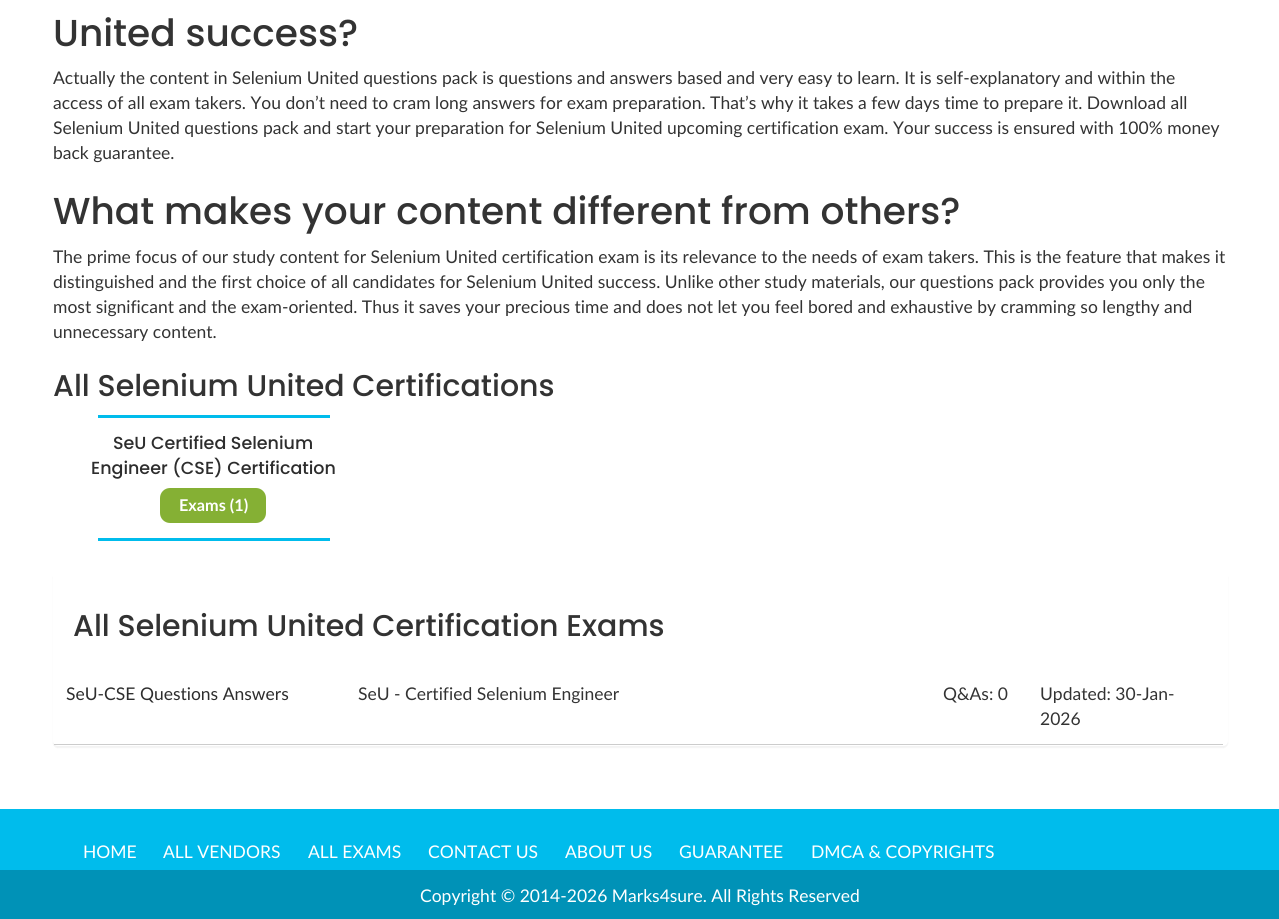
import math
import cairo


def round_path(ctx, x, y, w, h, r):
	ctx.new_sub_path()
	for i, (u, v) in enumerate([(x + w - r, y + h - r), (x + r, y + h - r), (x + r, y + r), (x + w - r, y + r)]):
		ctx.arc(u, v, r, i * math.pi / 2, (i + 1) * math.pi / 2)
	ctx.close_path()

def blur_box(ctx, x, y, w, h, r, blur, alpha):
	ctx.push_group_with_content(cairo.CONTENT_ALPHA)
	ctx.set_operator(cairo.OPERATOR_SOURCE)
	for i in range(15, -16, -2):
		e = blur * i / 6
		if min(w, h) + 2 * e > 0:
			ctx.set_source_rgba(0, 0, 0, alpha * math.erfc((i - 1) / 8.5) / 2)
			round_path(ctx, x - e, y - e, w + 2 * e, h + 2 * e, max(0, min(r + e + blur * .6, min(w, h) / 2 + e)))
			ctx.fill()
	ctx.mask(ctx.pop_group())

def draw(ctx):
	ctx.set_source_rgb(1, 1, 1)
	ctx.paint()
	ctx.select_font_face('Poppins Medium')
	ctx.set_font_size(37.5)
	ctx.set_source_rgb(0.2, 0.2, 0.2)
	ctx.move_to(53, 46)
	ctx.show_text('United success?')
	ctx.select_font_face('Lato')
	ctx.set_font_size(17.5)
	for x, y, s in [
		(53, 84, 'Actually the content in Selenium United questions pack is questions and answers based and very easy to learn. It is self-explanatory and within the'),
		(53, 109, 'access of all exam takers. You don’t need to cram long answers for exam preparation. That’s why it takes a few days time to prepare it. Download all'),
		(53, 134, 'Selenium United questions pack and start your preparation for Selenium United upcoming certification exam. Your success is ensured with 100% money'),
		(53, 159, 'back guarantee.'),
	]:
		ctx.move_to(x, y)
		ctx.show_text(s)
	ctx.select_font_face('Poppins Medium')
	ctx.set_font_size(37.5)
	ctx.move_to(53, 224)
	ctx.show_text('What makes your content different from others?')
	ctx.select_font_face('Lato')
	ctx.set_font_size(17.5)
	for x, y, s in [
		(53, 263, 'The prime focus of our study content for Selenium United certification exam is its relevance to the needs of exam takers. This is the feature that makes it'),
		(53, 288, 'distinguished and the first choice of all candidates for Selenium United success. Unlike other study materials, our questions pack provides you only the'),
		(53, 313, 'most significant and the exam-oriented. Thus it saves your precious time and does not let you feel bored and exhaustive by cramming so lengthy and'),
		(53, 338, 'unnecessary content.'),
	]:
		ctx.move_to(x, y)
		ctx.show_text(s)
	ctx.select_font_face('Poppins Medium')
	ctx.set_font_size(30)
	ctx.move_to(53, 396)
	ctx.show_text('All Selenium United Certifications')
	ctx.set_source_rgb(0, 0.737, 0.922)
	ctx.rectangle(98, 415, 232, 3)
	ctx.fill()
	ctx.rectangle(98, 538, 232, 3)
	ctx.fill()
	ctx.set_font_size(17.5)
	ctx.set_source_rgb(0.176, 0.176, 0.176)
	ctx.move_to(113, 449)
	ctx.show_text('SeU Certified Selenium')
	ctx.move_to(91, 474)
	ctx.show_text('Engineer (CSE) Certification')
	ctx.set_source_rgb(0.522, 0.69, 0.204)
	round_path(ctx, 160, 488, 106, 35, 10)
	ctx.fill()
	ctx.select_font_face('Lato', cairo.FONT_SLANT_NORMAL, cairo.FONT_WEIGHT_BOLD)
	ctx.set_font_size(16.25)
	ctx.set_source_rgb(1, 1, 1)
	ctx.move_to(179, 511)
	ctx.show_text('Exams (1)')
	ctx.set_source_rgb(0, 0, 0)
	blur_box(ctx, 53, 573, 1175, 175, 5, 0.5, 0.05)
	ctx.set_source_rgb(1, 1, 1)
	round_path(ctx, 53, 571, 1175, 175, 5)
	ctx.fill()
	ctx.select_font_face('Poppins Medium')
	ctx.set_font_size(30)
	ctx.set_source_rgb(0.2, 0.2, 0.2)
	ctx.move_to(73, 636)
	ctx.show_text('All Selenium United Certification Exams')
	ctx.set_source_rgb(0.8, 0.8, 0.8)
	ctx.rectangle(54, 744, 1169, 1)
	ctx.fill()
	ctx.select_font_face('Lato')
	ctx.set_font_size(17.5)
	ctx.set_source_rgb(0.176, 0.176, 0.176)
	ctx.move_to(66, 700)
	ctx.show_text('SeU-CSE Questions Answers')
	ctx.set_source_rgb(0.2, 0.2, 0.2)
	for x, y, s in [
		(358, 700, 'SeU - Certified Selenium Engineer'),
		(943, 700, 'Q&As: 0'),
		(1040, 700, 'Updated: 30-Jan-'),
		(1040, 725, '2026'),
	]:
		ctx.move_to(x, y)
		ctx.show_text(s)
	ctx.set_source_rgb(0, 0.737, 0.922)
	ctx.rectangle(0, 809, 1279, 61)
	ctx.fill()
	ctx.set_source_rgb(1, 1, 1)
	for x, y, s in [
		(83, 858, 'HOME'),
		(163, 858, 'ALL VENDORS'),
		(308, 858, 'ALL EXAMS'),
		(428, 858, 'CONTACT US'),
		(565, 858, 'ABOUT US'),
		(679, 858, 'GUARANTEE'),
		(811, 858, 'DMCA & COPYRIGHTS'),
	]:
		ctx.move_to(x, y)
		ctx.show_text(s)
	ctx.set_source_rgb(0, 0.573, 0.718)
	ctx.rectangle(0, 870, 1279, 49)
	ctx.fill()
	ctx.set_source_rgb(1, 1, 1)
	ctx.move_to(420, 902)
	ctx.show_text('Copyright © 2014-2026 Marks4sure. All Rights Reserved')


surface = cairo.ImageSurface(cairo.FORMAT_RGB24, 1279, 919)
ctx = cairo.Context(surface)
options = cairo.FontOptions()
options.set_hint_metrics(cairo.HINT_METRICS_OFF)
options.set_hint_style(cairo.HINT_STYLE_NONE)
ctx.set_font_options(options)
ctx.set_miter_limit(4)
draw(ctx)
surface.write_to_png('image.png')
